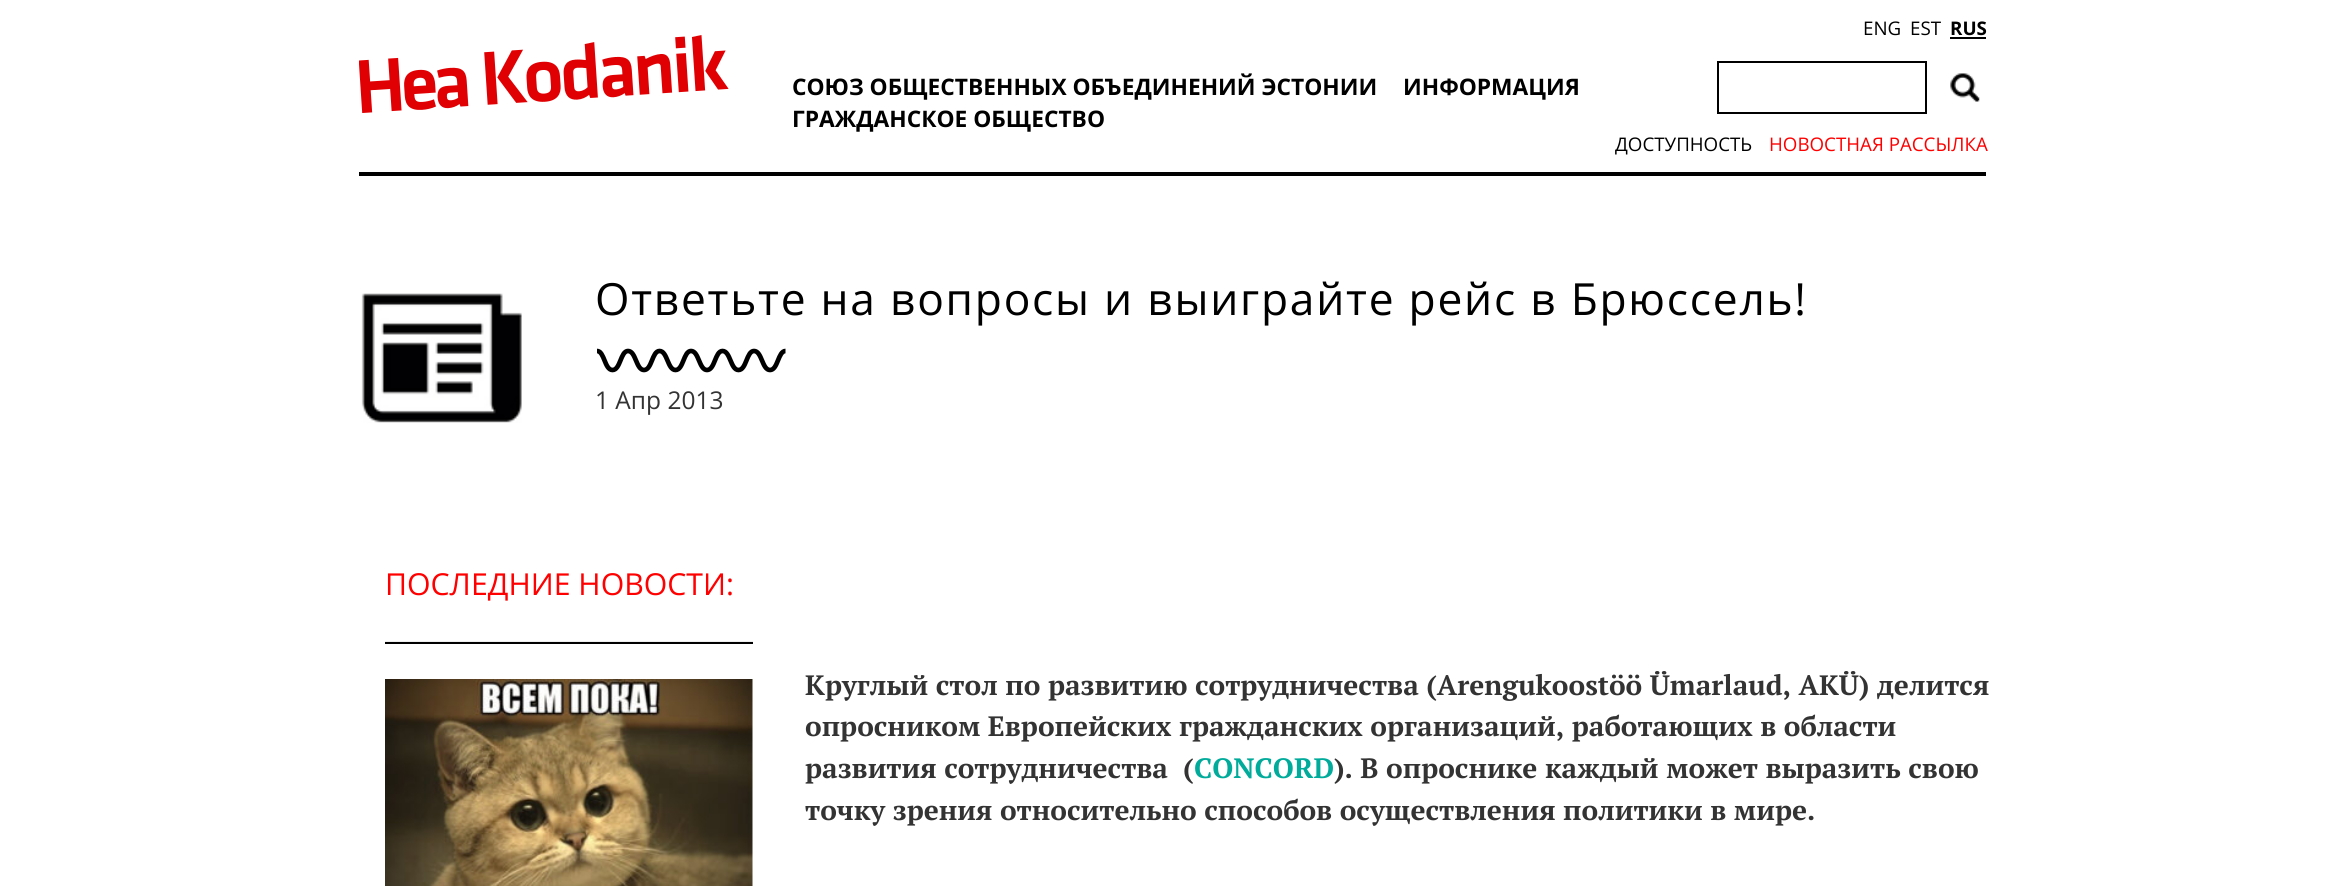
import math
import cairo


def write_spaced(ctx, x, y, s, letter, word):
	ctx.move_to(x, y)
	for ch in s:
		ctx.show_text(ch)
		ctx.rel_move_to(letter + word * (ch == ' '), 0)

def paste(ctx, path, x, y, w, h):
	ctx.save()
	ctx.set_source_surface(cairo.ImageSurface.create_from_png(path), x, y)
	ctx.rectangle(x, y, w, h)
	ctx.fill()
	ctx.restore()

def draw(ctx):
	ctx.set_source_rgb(1, 1, 1)
	ctx.paint()
	ctx.set_source_rgb(0, 0, 0)
	ctx.rectangle(359, 172, 1627, 4)
	ctx.fill()
	paste(ctx, 'media/1.png', 359, 35, 370, 78)
	ctx.select_font_face('Open Sans', cairo.FONT_SLANT_NORMAL, cairo.FONT_WEIGHT_BOLD)
	ctx.set_font_size(22.75)
	for x, y, s in [
		(792, 95, 'СОЮЗ ОБЩЕСТВЕННЫХ ОБЪЕДИНЕНИЙ ЭСТОНИИ'),
		(1403, 95, 'ИНФОРМАЦИЯ'),
		(792, 127, 'ГРАЖДАНСКОE ОБЩЕСТВO'),
	]:
		ctx.move_to(x, y)
		ctx.show_text(s)
	ctx.select_font_face('Open Sans')
	ctx.set_font_size(18.75)
	ctx.move_to(1863, 35)
	ctx.show_text('ENG')
	ctx.move_to(1910, 35)
	ctx.show_text('EST')
	ctx.select_font_face('Open Sans', cairo.FONT_SLANT_NORMAL, cairo.FONT_WEIGHT_BOLD)
	ctx.move_to(1950, 35)
	ctx.show_text('RUS')
	ctx.rectangle(1950, 37, 36, 2)
	ctx.fill()
	ctx.rectangle(1718, 62, 208, 51)
	ctx.stroke()
	paste(ctx, 'media/2.png', 1950, 73, 30, 29)
	ctx.select_font_face('Open Sans')
	ctx.move_to(1615, 151)
	ctx.show_text('ДОСТУПНОСТЬ')
	ctx.set_source_rgb(1, 0, 0)
	ctx.move_to(1769, 151)
	ctx.show_text('НОВОСТНАЯ РАССЫЛКА')
	paste(ctx, 'media/3.png', 361, 293, 161, 130)
	ctx.set_font_size(44.3)
	ctx.set_source_rgb(0, 0, 0)
	write_spaced(ctx, 595, 315, 'Ответьте на вопросы и выиграйте рейс в Брюссель!', 1.75, 0)
	ctx.new_path()
	ctx.move_to(597, 351)
	ctx.curve_to(604.5, 351, 604.5, 370, 612.5, 370)
	ctx.curve_to(620.5, 370, 620.5, 351, 628, 351)
	ctx.curve_to(636, 351, 636, 370, 644, 370)
	ctx.curve_to(652, 370, 652, 351, 659.5, 351)
	ctx.curve_to(667.5, 351, 667.5, 370, 675.5, 370)
	ctx.curve_to(683.5, 370, 683.5, 351, 691, 351)
	ctx.curve_to(699, 351, 699, 370, 707, 370)
	ctx.curve_to(715, 370, 715, 351, 722.5, 351)
	ctx.curve_to(730.5, 351, 730.5, 370, 738.5, 370)
	ctx.curve_to(746.5, 370, 746.5, 351, 754, 351)
	ctx.curve_to(762, 351, 762, 370, 770, 370)
	ctx.curve_to(778, 370, 778, 351, 785.5, 351)
	ctx.set_line_width(4.7)
	ctx.stroke()
	ctx.set_font_size(24.5)
	ctx.set_source_rgb(0.2, 0.2, 0.2)
	ctx.move_to(595, 409)
	ctx.show_text('1 Апр 2013')
	ctx.set_font_size(30.25)
	ctx.set_source_rgb(1, 0, 0)
	ctx.move_to(385, 595)
	ctx.show_text('ПОСЛЕДНИЕ НОВОСТИ:')
	ctx.set_source_rgb(0.933, 0.933, 0.933)
	ctx.rectangle(385, 641, 368, 1)
	ctx.fill()
	ctx.set_source_rgb(0, 0, 0)
	ctx.rectangle(385, 642, 368, 2)
	ctx.fill()
	paste(ctx, 'media/4.png', 385, 679, 368, 207)
	ctx.select_font_face('PT Serif', cairo.FONT_SLANT_NORMAL, cairo.FONT_WEIGHT_BOLD)
	ctx.set_font_size(28)
	ctx.set_source_rgb(0.2, 0.2, 0.2)
	for x, y, s in [
		(805, 695, 'Круглый стол по развитию сотрудничества (Arengukoostöö Ümarlaud, AKÜ) делится'),
		(805, 736, 'опросником Европейских гражданских организаций, работающих в области'),
		(805, 778, 'развития сотрудничества  ('),
	]:
		ctx.move_to(x, y)
		ctx.show_text(s)
	ctx.set_source_rgb(0, 0.671, 0.608)
	ctx.move_to(1194, 778)
	ctx.show_text('CONCORD')
	ctx.set_source_rgb(0.2, 0.2, 0.2)
	ctx.move_to(1334, 778)
	ctx.show_text('). В опроснике каждый может выразить свою')
	ctx.move_to(805, 820)
	ctx.show_text('точку зрения относительно способов осуществления политики в мире.')


surface = cairo.ImageSurface(cairo.FORMAT_RGB24, 2345, 886)
ctx = cairo.Context(surface)
options = cairo.FontOptions()
options.set_hint_metrics(cairo.HINT_METRICS_OFF)
options.set_hint_style(cairo.HINT_STYLE_NONE)
ctx.set_font_options(options)
ctx.set_miter_limit(4)
draw(ctx)
surface.write_to_png('image.png')
